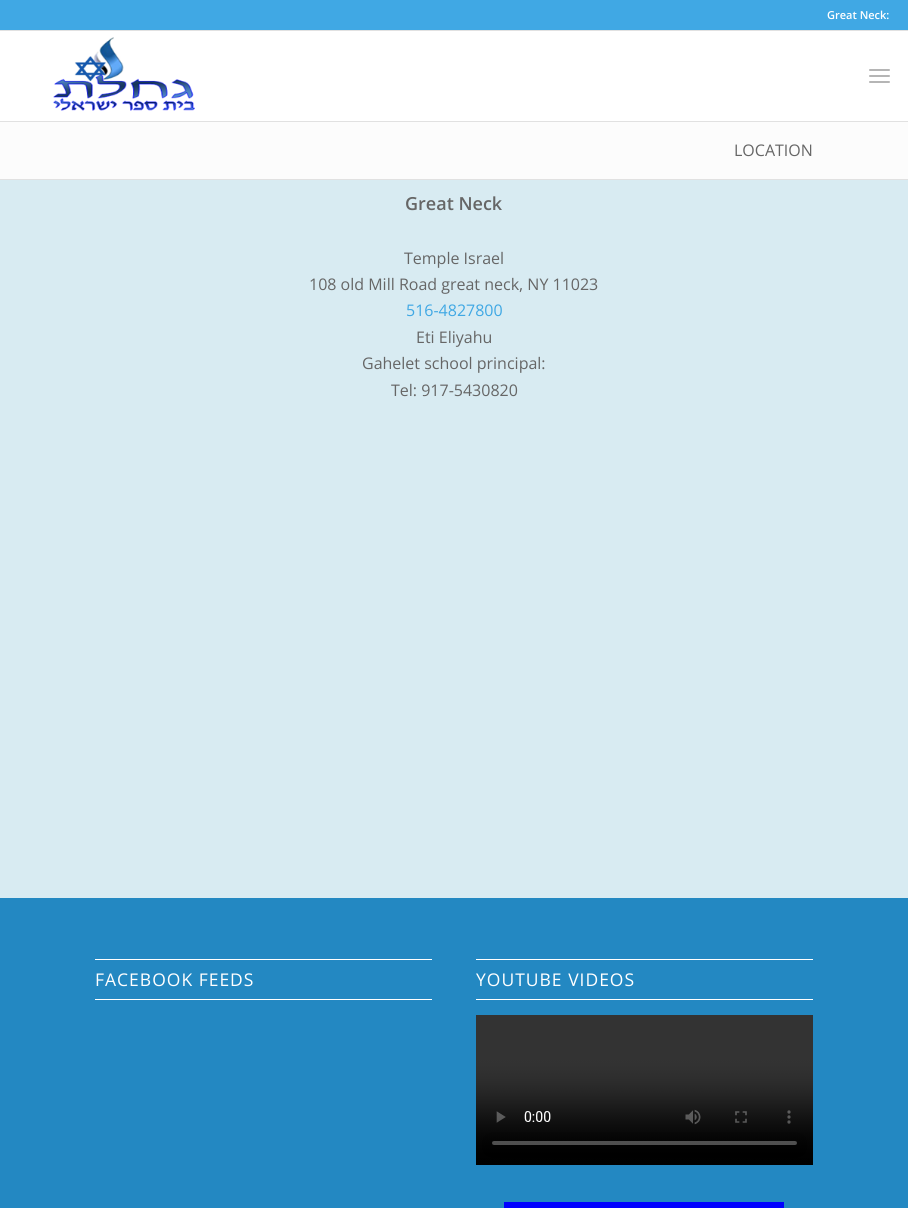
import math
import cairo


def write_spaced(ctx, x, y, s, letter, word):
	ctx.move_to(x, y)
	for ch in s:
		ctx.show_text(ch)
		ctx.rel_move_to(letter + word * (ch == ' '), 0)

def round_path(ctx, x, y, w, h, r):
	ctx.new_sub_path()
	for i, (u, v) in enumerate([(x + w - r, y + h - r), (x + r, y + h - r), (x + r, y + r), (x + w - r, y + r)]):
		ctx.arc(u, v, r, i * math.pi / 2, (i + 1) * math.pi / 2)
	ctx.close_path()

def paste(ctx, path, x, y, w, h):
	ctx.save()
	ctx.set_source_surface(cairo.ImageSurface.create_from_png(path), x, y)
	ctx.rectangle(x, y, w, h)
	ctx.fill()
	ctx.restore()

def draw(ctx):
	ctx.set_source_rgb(0.988, 0.988, 0.988)
	ctx.paint()
	ctx.set_source_rgb(0.251, 0.659, 0.894)
	ctx.rectangle(0, 0, 908, 30)
	ctx.fill()
	ctx.set_source_rgb(0.882, 0.882, 0.882)
	ctx.rectangle(0, 30, 908, 1)
	ctx.fill()
	ctx.select_font_face('Open Sans SemiBold')
	ctx.set_font_size(11)
	ctx.set_source_rgb(1, 1, 1)
	ctx.move_to(827, 19)
	ctx.show_text('Great Neck:')
	ctx.rectangle(0, 31, 908, 90)
	ctx.fill()
	ctx.set_source_rgb(0.882, 0.882, 0.882)
	ctx.rectangle(0, 121, 908, 1)
	ctx.fill()
	paste(ctx, 'media/1.png', 53, 37, 142, 74)
	ctx.set_source_rgb(0.71, 0.71, 0.71)
	round_path(ctx, 869, 75, 21, 2, 1)
	ctx.fill()
	round_path(ctx, 869, 69, 21, 2, 1)
	ctx.fill()
	round_path(ctx, 869, 81, 21, 2, 1)
	ctx.fill()
	ctx.select_font_face('Open Sans')
	ctx.set_font_size(16)
	ctx.set_source_rgb(0.4, 0.4, 0.4)
	ctx.move_to(734, 156)
	ctx.show_text('LOCATION')
	ctx.set_source_rgb(0.847, 0.918, 0.949)
	ctx.rectangle(0, 180, 908, 718)
	ctx.fill()
	ctx.set_source_rgb(0.882, 0.882, 0.882)
	ctx.rectangle(0, 179, 908, 1)
	ctx.fill()
	ctx.select_font_face('Open Sans SemiBold')
	ctx.set_font_size(18)
	ctx.set_source_rgb(0.4, 0.4, 0.4)
	ctx.move_to(405, 210)
	ctx.show_text('Great Neck')
	ctx.select_font_face('Open Sans')
	ctx.set_font_size(16)
	ctx.move_to(404, 264)
	ctx.show_text('Temple Israel')
	ctx.move_to(309, 290)
	ctx.show_text('108 old Mill Road great neck, NY 11023')
	ctx.set_source_rgb(0.251, 0.659, 0.894)
	ctx.move_to(406, 316)
	ctx.show_text('516-4827800')
	ctx.set_source_rgb(0.4, 0.4, 0.4)
	for x, y, s in [
		(416, 343, 'Eti Eliyahu'),
		(362, 369, 'Gahelet school principal:'),
		(391, 396, 'Tel: 917-5430820'),
	]:
		ctx.move_to(x, y)
		ctx.show_text(s)
	ctx.set_source_rgb(0.137, 0.533, 0.761)
	ctx.rectangle(0, 898, 908, 310)
	ctx.fill()
	ctx.set_source_rgb(1, 1, 1)
	ctx.rectangle(95, 959, 337, 1)
	ctx.rectangle(95, 999, 337, 1)
	ctx.fill()
	ctx.set_font_size(17.5)
	write_spaced(ctx, 95, 986, 'FACEBOOK FEEDS', 1, 0)
	ctx.rectangle(476, 959, 337, 1)
	ctx.fill()
	ctx.rectangle(476, 999, 337, 1)
	ctx.fill()
	write_spaced(ctx, 476, 986, 'YOUTUBE VIDEOS', 1, 0)
	paste(ctx, 'media/2.png', 476, 1015, 337, 150)
	ctx.set_source_rgb(0, 0, 1)
	ctx.rectangle(504, 1202, 280, 6)
	ctx.fill()


surface = cairo.ImageSurface(cairo.FORMAT_RGB24, 908, 1208)
ctx = cairo.Context(surface)
options = cairo.FontOptions()
options.set_hint_metrics(cairo.HINT_METRICS_OFF)
options.set_hint_style(cairo.HINT_STYLE_NONE)
ctx.set_font_options(options)
ctx.set_miter_limit(4)
draw(ctx)
surface.write_to_png('image.png')
